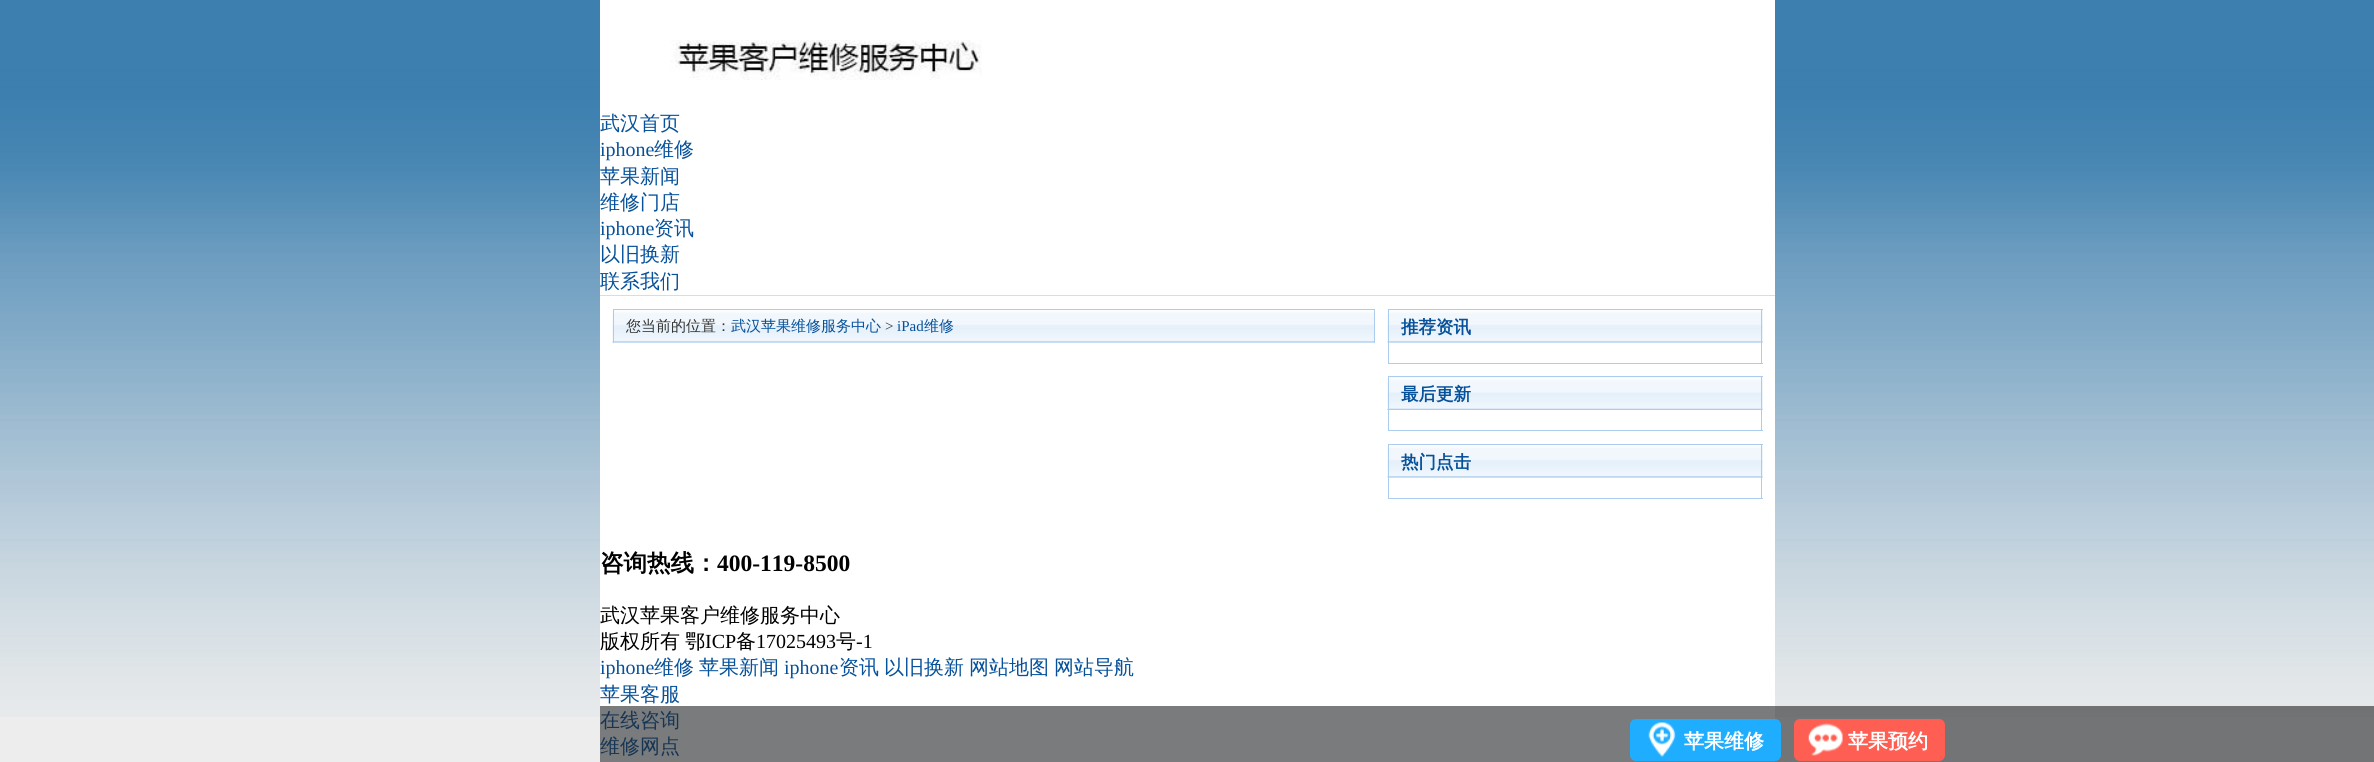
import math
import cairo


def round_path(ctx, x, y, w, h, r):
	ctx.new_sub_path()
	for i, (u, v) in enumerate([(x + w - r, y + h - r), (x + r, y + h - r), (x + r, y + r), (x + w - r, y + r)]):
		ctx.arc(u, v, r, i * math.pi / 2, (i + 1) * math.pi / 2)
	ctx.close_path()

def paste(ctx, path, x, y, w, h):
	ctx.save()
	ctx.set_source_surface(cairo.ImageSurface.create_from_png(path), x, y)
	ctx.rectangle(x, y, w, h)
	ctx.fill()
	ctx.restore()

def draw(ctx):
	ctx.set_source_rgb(0.929, 0.929, 0.929)
	ctx.paint()
	paste(ctx, 'media/1.png', 0, 0, 2374, 717)
	ctx.set_source_rgb(1, 1, 1)
	ctx.rectangle(600, 0, 1175, 762)
	ctx.fill()
	ctx.set_source_rgb(0.863, 0.863, 0.863)
	ctx.rectangle(600, 295, 1175, 1)
	ctx.fill()
	paste(ctx, 'media/2.png', 670, 40, 312, 40)
	ctx.select_font_face('WenQuanYi Zen Hei Medium')
	ctx.set_font_size(20)
	ctx.set_source_rgb(0.027, 0.318, 0.604)
	ctx.move_to(600, 130)
	ctx.show_text('武汉首页')
	ctx.select_font_face('Liberation Serif')
	ctx.move_to(600, 156)
	ctx.show_text('iphone')
	ctx.select_font_face('WenQuanYi Zen Hei Medium')
	for x, y, s in [
		(654, 156, '维修'),
		(600, 183, '苹果新闻'),
		(600, 209, '维修门店'),
	]:
		ctx.move_to(x, y)
		ctx.show_text(s)
	ctx.select_font_face('Liberation Serif')
	ctx.move_to(600, 235)
	ctx.show_text('iphone')
	ctx.select_font_face('WenQuanYi Zen Hei Medium')
	for x, y, s in [
		(654, 235, '资讯'),
		(600, 261, '以旧换新'),
		(600, 288, '联系我们'),
	]:
		ctx.move_to(x, y)
		ctx.show_text(s)
	ctx.set_source_rgb(0.914, 0.949, 0.984)
	ctx.rectangle(614, 342, 760, 1)
	ctx.fill()
	paste(ctx, 'media/3.png', 612, 310, 762, 33)
	ctx.set_source_rgb(0.667, 0.8, 0.933)
	ctx.rectangle(613, 309, 762, 1)
	ctx.rectangle(1374, 309, 1, 34)
	ctx.rectangle(613, 309, 1, 34)
	ctx.fill()
	ctx.set_font_size(15)
	ctx.set_source_rgb(0.2, 0.2, 0.2)
	ctx.move_to(626, 331)
	ctx.show_text('您当前的位置：')
	ctx.set_source_rgb(0.027, 0.318, 0.604)
	ctx.move_to(731, 331)
	ctx.show_text('武汉苹果维修服务中心')
	ctx.select_font_face('Liberation Serif')
	ctx.set_source_rgb(0.2, 0.2, 0.2)
	ctx.move_to(885, 331)
	ctx.show_text('>')
	ctx.set_source_rgb(0.027, 0.318, 0.604)
	ctx.move_to(897, 331)
	ctx.show_text('iPad')
	ctx.select_font_face('WenQuanYi Zen Hei Medium')
	ctx.move_to(924, 331)
	ctx.show_text('维修')
	ctx.set_source_rgb(0.914, 0.949, 0.984)
	ctx.rectangle(1389, 310, 374, 33)
	ctx.fill()
	paste(ctx, 'media/4.png', 1387, 310, 376, 33)
	ctx.set_source_rgb(0.667, 0.8, 0.933)
	ctx.rectangle(1388, 309, 375, 1)
	ctx.rectangle(1761, 309, 1, 55)
	ctx.rectangle(1388, 309, 1, 34)
	ctx.fill()
	ctx.select_font_face('WenQuanYi Zen Hei', cairo.FONT_SLANT_NORMAL, cairo.FONT_WEIGHT_BOLD)
	ctx.set_font_size(17.5)
	ctx.set_source_rgb(0.027, 0.318, 0.604)
	ctx.move_to(1401, 333)
	ctx.show_text('推荐资讯')
	ctx.set_source_rgb(0.667, 0.8, 0.933)
	ctx.rectangle(1388, 363, 375, 1)
	ctx.rectangle(1388, 343, 1, 21)
	ctx.fill()
	ctx.set_source_rgb(0.914, 0.949, 0.984)
	ctx.rectangle(1389, 377, 374, 33)
	ctx.fill()
	paste(ctx, 'media/5.png', 1387, 377, 376, 33)
	ctx.set_source_rgb(0.667, 0.8, 0.933)
	ctx.rectangle(1388, 376, 375, 1)
	ctx.rectangle(1761, 376, 1, 55)
	ctx.rectangle(1388, 376, 1, 34)
	ctx.fill()
	ctx.set_source_rgb(0.027, 0.318, 0.604)
	ctx.move_to(1401, 400)
	ctx.show_text('最后更新')
	ctx.set_source_rgb(0.667, 0.8, 0.933)
	ctx.rectangle(1388, 430, 375, 1)
	ctx.rectangle(1388, 410, 1, 21)
	ctx.fill()
	ctx.set_source_rgb(0.914, 0.949, 0.984)
	ctx.rectangle(1389, 445, 374, 33)
	ctx.fill()
	paste(ctx, 'media/4.png', 1387, 445, 376, 33)
	ctx.set_source_rgb(0.667, 0.8, 0.933)
	ctx.rectangle(1388, 444, 375, 1)
	ctx.rectangle(1761, 444, 1, 55)
	ctx.rectangle(1388, 444, 1, 34)
	ctx.fill()
	ctx.set_source_rgb(0.027, 0.318, 0.604)
	ctx.move_to(1401, 468)
	ctx.show_text('热门点击')
	ctx.set_source_rgb(0.667, 0.8, 0.933)
	ctx.rectangle(1388, 498, 375, 1)
	ctx.fill()
	ctx.rectangle(1388, 478, 1, 21)
	ctx.fill()
	ctx.set_font_size(23.5)
	ctx.set_source_rgb(0, 0, 0)
	ctx.move_to(600, 571)
	ctx.show_text('咨询热线：')
	ctx.select_font_face('Liberation Serif', cairo.FONT_SLANT_NORMAL, cairo.FONT_WEIGHT_BOLD)
	ctx.move_to(717, 571)
	ctx.show_text('400-119-8500')
	ctx.select_font_face('WenQuanYi Zen Hei Medium')
	ctx.set_font_size(20)
	for x, y, s in [
		(600, 622, '武汉苹果客户维修服务中心'),
		(600, 648, '版权所有'),
		(685, 648, '鄂'),
	]:
		ctx.move_to(x, y)
		ctx.show_text(s)
	ctx.select_font_face('Liberation Serif')
	ctx.move_to(705, 648)
	ctx.show_text('ICP')
	ctx.select_font_face('WenQuanYi Zen Hei Medium')
	ctx.move_to(736, 648)
	ctx.show_text('备')
	ctx.select_font_face('Liberation Serif')
	ctx.move_to(756, 648)
	ctx.show_text('17025493')
	ctx.select_font_face('WenQuanYi Zen Hei Medium')
	ctx.move_to(836, 648)
	ctx.show_text('号')
	ctx.select_font_face('Liberation Serif')
	ctx.move_to(856, 648)
	ctx.show_text('-1')
	ctx.set_source_rgb(0.027, 0.318, 0.604)
	ctx.move_to(600, 674)
	ctx.show_text('iphone')
	ctx.select_font_face('WenQuanYi Zen Hei Medium')
	ctx.move_to(654, 674)
	ctx.show_text('维修')
	ctx.move_to(699, 674)
	ctx.show_text('苹果新闻')
	ctx.select_font_face('Liberation Serif')
	ctx.move_to(784, 674)
	ctx.show_text('iphone')
	ctx.select_font_face('WenQuanYi Zen Hei Medium')
	for x, y, s in [
		(839, 674, '资讯'),
		(884, 674, '以旧换新'),
		(969, 674, '网站地图'),
		(1054, 674, '网站导航'),
		(600, 701, '苹果客服'),
		(600, 727, '在线咨询'),
		(600, 753, '维修网点'),
	]:
		ctx.move_to(x, y)
		ctx.show_text(s)
	ctx.set_source_rgba(0.133, 0.137, 0.149, 0.6)
	ctx.rectangle(600, 706, 1774, 56)
	ctx.fill()
	ctx.set_source_rgb(0.122, 0.682, 1)
	round_path(ctx, 1630, 719, 151, 42, 6)
	ctx.fill()
	paste(ctx, 'media/6.png', 1648, 722, 28, 35)
	ctx.select_font_face('WenQuanYi Zen Hei', cairo.FONT_SLANT_NORMAL, cairo.FONT_WEIGHT_BOLD)
	ctx.set_source_rgb(1, 1, 1)
	ctx.move_to(1684, 748)
	ctx.show_text('苹果维修')
	ctx.set_source_rgb(1, 0.369, 0.322)
	round_path(ctx, 1794, 719, 151, 42, 6)
	ctx.fill()
	paste(ctx, 'media/7.png', 1808, 723, 35, 33)
	ctx.set_source_rgb(1, 1, 1)
	ctx.move_to(1848, 748)
	ctx.show_text('苹果预约')


surface = cairo.ImageSurface(cairo.FORMAT_RGB24, 2374, 762)
ctx = cairo.Context(surface)
options = cairo.FontOptions()
options.set_hint_metrics(cairo.HINT_METRICS_OFF)
options.set_hint_style(cairo.HINT_STYLE_NONE)
ctx.set_font_options(options)
ctx.set_miter_limit(4)
draw(ctx)
surface.write_to_png('image.png')
